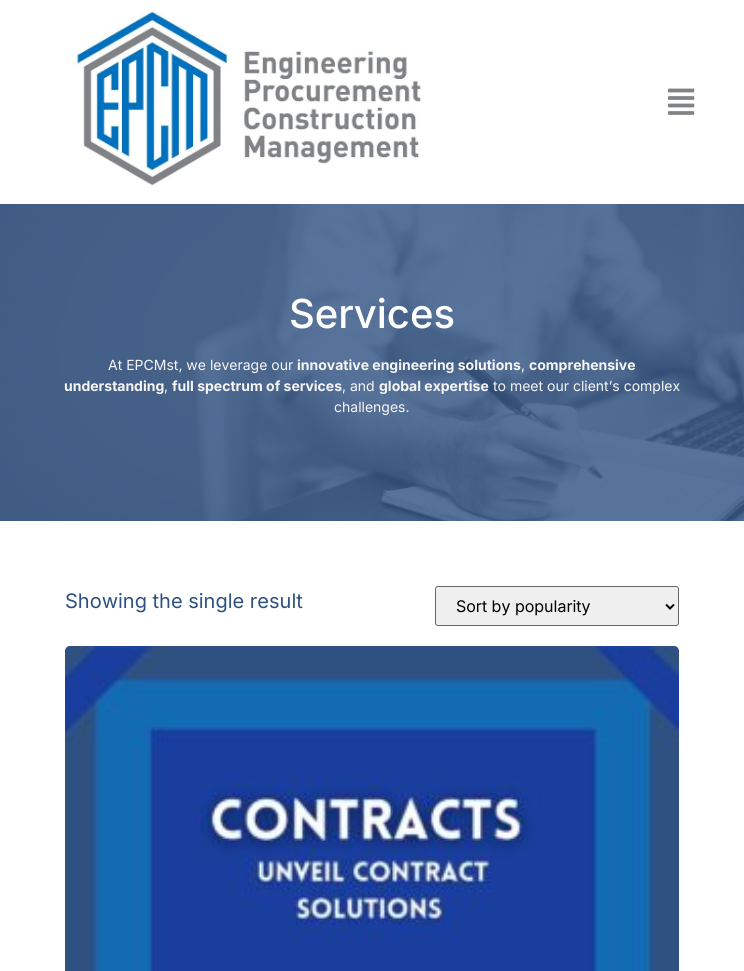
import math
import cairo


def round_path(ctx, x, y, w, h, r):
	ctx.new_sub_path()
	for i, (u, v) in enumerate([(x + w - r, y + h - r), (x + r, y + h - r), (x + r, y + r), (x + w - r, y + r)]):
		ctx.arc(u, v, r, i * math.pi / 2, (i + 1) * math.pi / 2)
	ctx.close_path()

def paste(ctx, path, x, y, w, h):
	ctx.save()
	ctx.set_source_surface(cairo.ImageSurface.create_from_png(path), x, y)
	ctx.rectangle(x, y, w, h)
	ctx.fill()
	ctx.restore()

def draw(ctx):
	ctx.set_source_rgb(1, 1, 1)
	ctx.paint()
	paste(ctx, 'media/1.png', 76, 10, 345, 176)
	paste(ctx, 'media/2.png', 668, 88, 27, 27)
	paste(ctx, 'media/3.png', 0, 204, 744, 317)
	ctx.select_font_face('Inter Medium')
	ctx.set_font_size(40)
	ctx.set_source_rgb(1, 1, 1)
	ctx.move_to(289, 328)
	ctx.show_text('Services')
	ctx.select_font_face('Inter')
	ctx.set_font_size(14)
	ctx.set_source_rgb(0.961, 0.961, 0.961)
	ctx.move_to(108, 370)
	ctx.show_text('At EPCMst, we leverage our')
	ctx.select_font_face('Inter', cairo.FONT_SLANT_NORMAL, cairo.FONT_WEIGHT_BOLD)
	ctx.move_to(297, 370)
	ctx.show_text('innovative engineering solutions')
	ctx.select_font_face('Inter')
	ctx.move_to(521, 370)
	ctx.show_text(',')
	ctx.select_font_face('Inter', cairo.FONT_SLANT_NORMAL, cairo.FONT_WEIGHT_BOLD)
	ctx.move_to(529, 370)
	ctx.show_text('comprehensive')
	ctx.move_to(64, 391)
	ctx.show_text('understanding')
	ctx.select_font_face('Inter')
	ctx.move_to(164, 391)
	ctx.show_text(',')
	ctx.select_font_face('Inter', cairo.FONT_SLANT_NORMAL, cairo.FONT_WEIGHT_BOLD)
	ctx.move_to(172, 391)
	ctx.show_text('full spectrum of services')
	ctx.select_font_face('Inter')
	ctx.move_to(342, 391)
	ctx.show_text(', and')
	ctx.select_font_face('Inter', cairo.FONT_SLANT_NORMAL, cairo.FONT_WEIGHT_BOLD)
	ctx.move_to(379, 391)
	ctx.show_text('global expertise')
	ctx.select_font_face('Inter')
	ctx.move_to(493, 391)
	ctx.show_text('to meet our client’s complex')
	ctx.move_to(334, 412)
	ctx.show_text('challenges.')
	ctx.set_font_size(20)
	ctx.set_source_rgb(0.184, 0.318, 0.51)
	ctx.move_to(65, 608)
	ctx.show_text('Showing the single result')
	ctx.set_source_rgb(0.937, 0.937, 0.937)
	round_path(ctx, 435.5, 586.5, 243, 39, 2.5)
	ctx.fill_preserve()
	ctx.set_source_rgb(0.4, 0.4, 0.4)
	ctx.set_line_width(1)
	ctx.stroke()
	ctx.new_path()
	ctx.move_to(666, 604.5)
	ctx.line_to(670, 608.5)
	ctx.line_to(674, 604.5)
	ctx.set_source_rgb(0, 0, 0)
	ctx.set_line_width(2)
	ctx.stroke()
	ctx.set_font_size(16)
	ctx.move_to(456, 612)
	ctx.show_text('Sort by popularity')
	paste(ctx, 'media/4.png', 65, 646, 614, 325)


surface = cairo.ImageSurface(cairo.FORMAT_RGB24, 744, 971)
ctx = cairo.Context(surface)
options = cairo.FontOptions()
options.set_hint_metrics(cairo.HINT_METRICS_OFF)
options.set_hint_style(cairo.HINT_STYLE_NONE)
ctx.set_font_options(options)
ctx.set_miter_limit(4)
draw(ctx)
surface.write_to_png('image.png')
